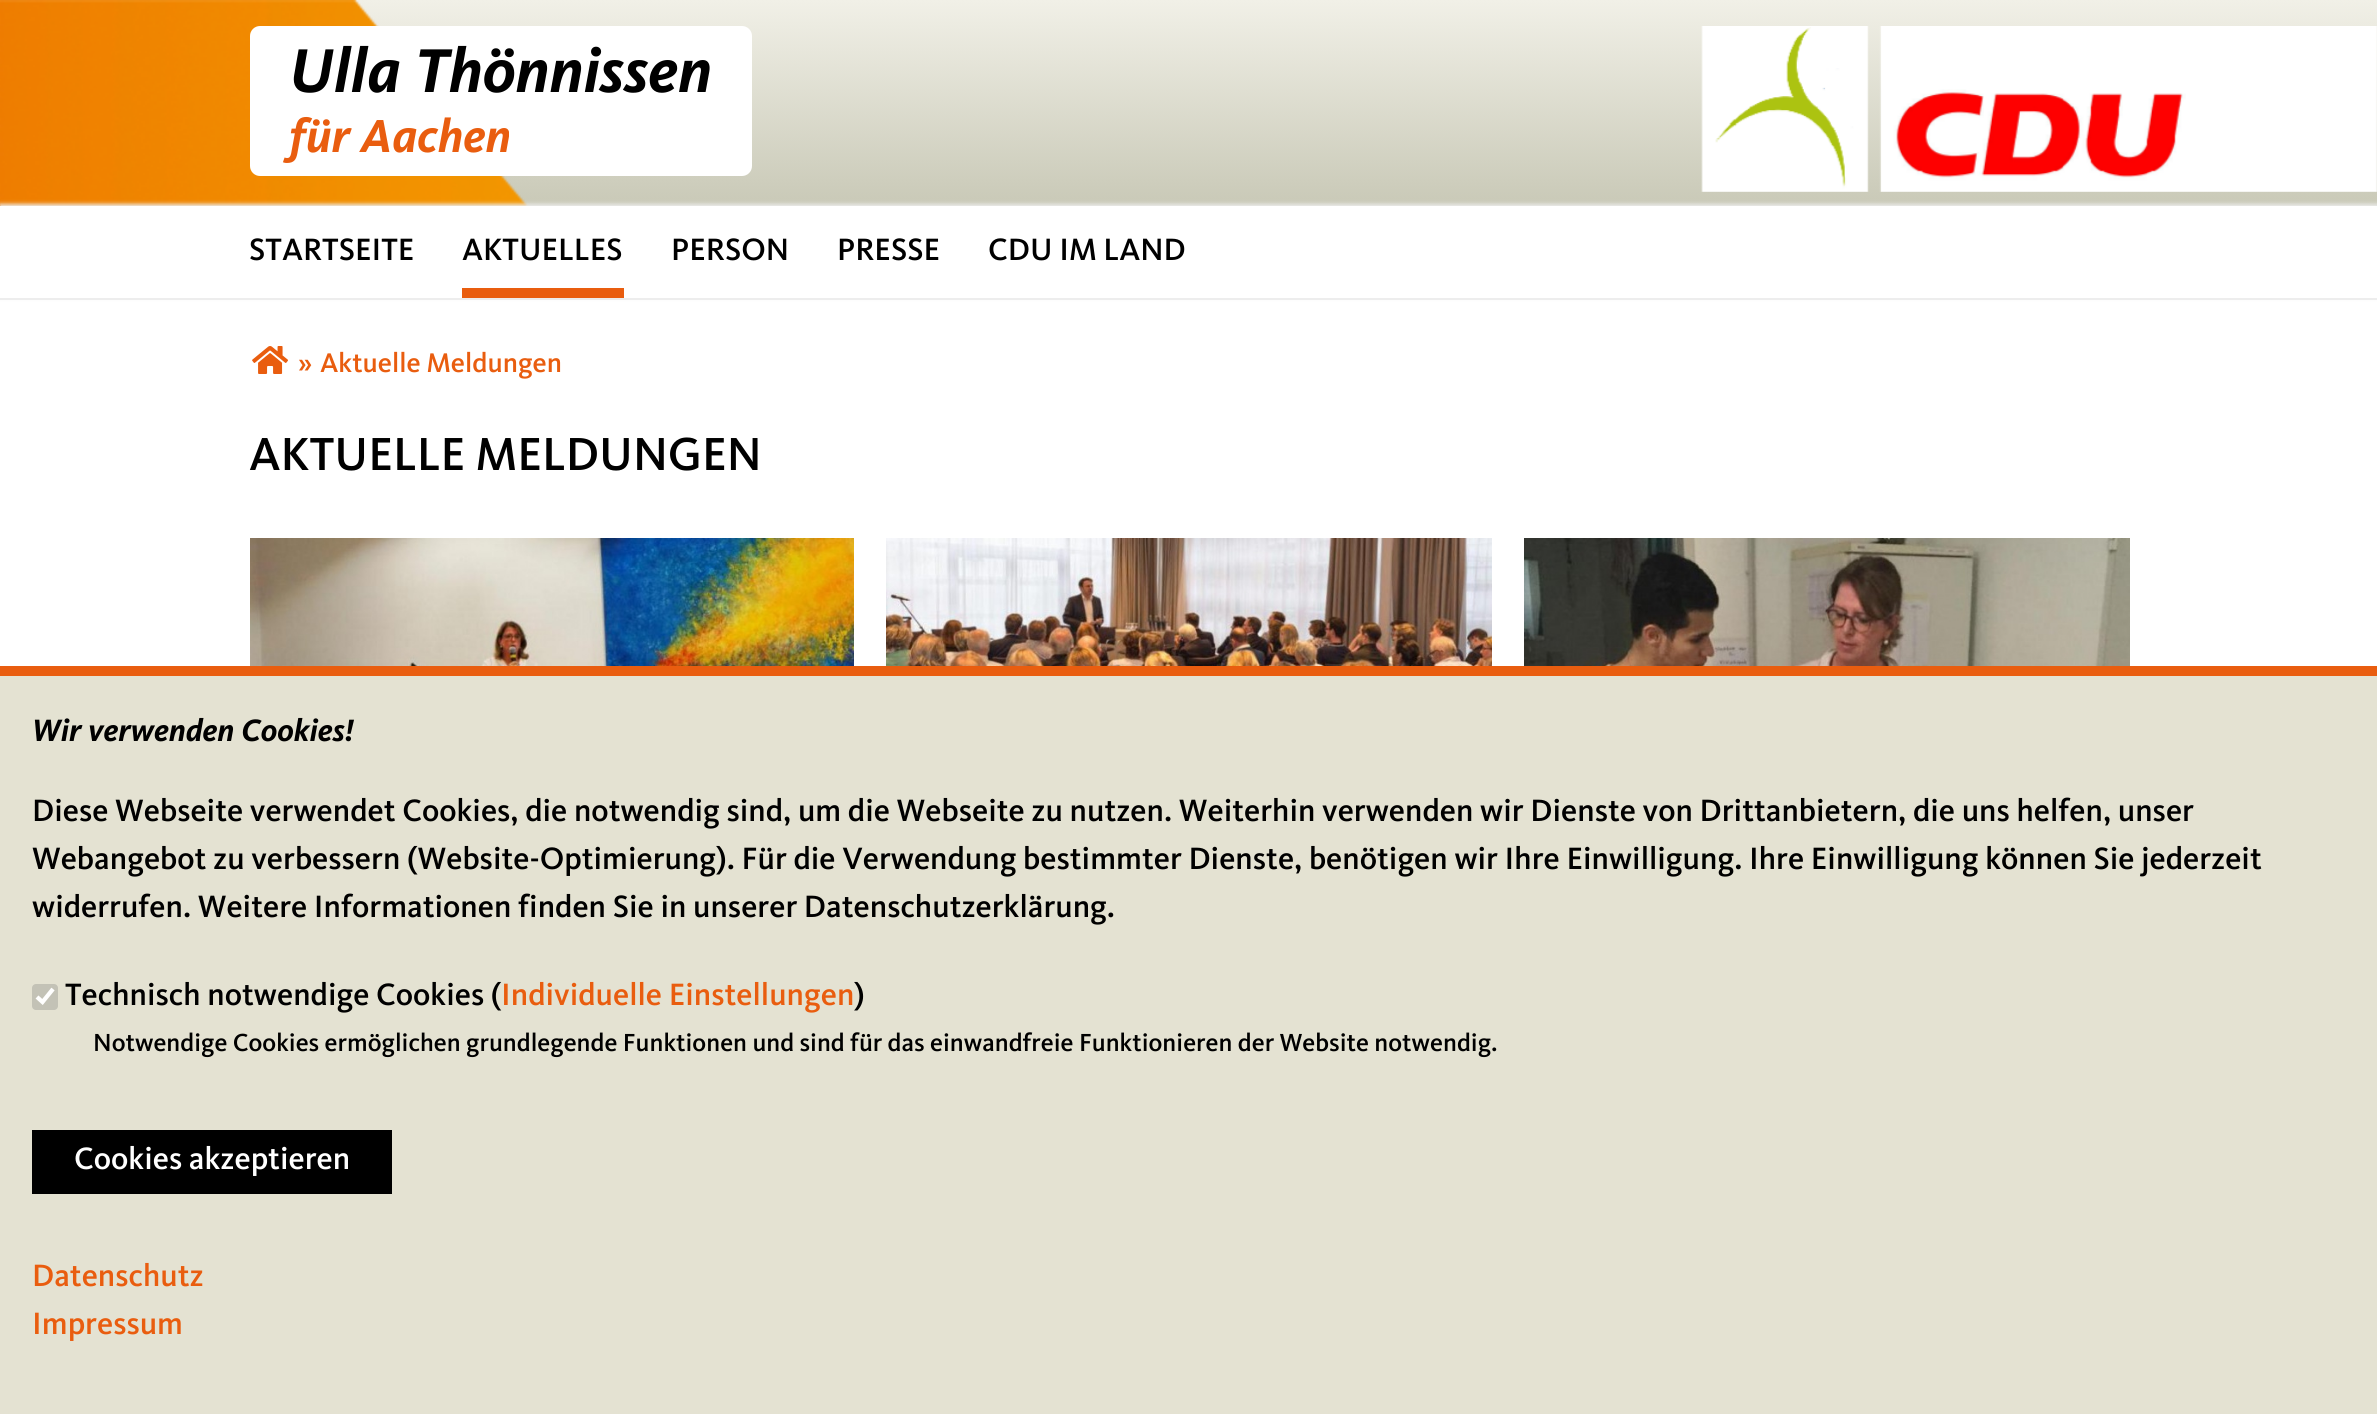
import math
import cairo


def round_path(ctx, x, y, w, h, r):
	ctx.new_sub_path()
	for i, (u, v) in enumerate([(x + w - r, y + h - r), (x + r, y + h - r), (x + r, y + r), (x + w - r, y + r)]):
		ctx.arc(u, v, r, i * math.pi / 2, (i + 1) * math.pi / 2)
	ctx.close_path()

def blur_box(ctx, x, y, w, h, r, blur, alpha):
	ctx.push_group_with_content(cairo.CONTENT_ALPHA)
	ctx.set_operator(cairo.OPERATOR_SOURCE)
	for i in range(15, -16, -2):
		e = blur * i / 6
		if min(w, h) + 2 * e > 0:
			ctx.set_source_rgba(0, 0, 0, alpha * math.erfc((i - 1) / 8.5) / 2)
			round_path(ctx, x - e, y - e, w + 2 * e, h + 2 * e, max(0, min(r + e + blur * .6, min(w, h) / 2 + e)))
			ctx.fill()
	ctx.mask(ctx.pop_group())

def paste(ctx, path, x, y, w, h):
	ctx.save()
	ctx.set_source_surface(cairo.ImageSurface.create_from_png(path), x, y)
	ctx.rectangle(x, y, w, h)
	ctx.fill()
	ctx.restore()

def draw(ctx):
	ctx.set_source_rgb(1, 1, 1)
	ctx.paint()
	paste(ctx, 'media/1.png', 0, 0, 2377, 206)
	ctx.set_source_rgb(1, 1, 1)
	round_path(ctx, 250, 26, 502, 150, 10)
	ctx.fill()
	ctx.select_font_face('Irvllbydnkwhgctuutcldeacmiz', cairo.FONT_SLANT_NORMAL, cairo.FONT_WEIGHT_BOLD)
	ctx.set_font_size(64)
	ctx.set_source_rgb(0, 0, 0)
	ctx.move_to(289, 92)
	ctx.show_text('Ulla Thönnissen')
	ctx.set_font_size(48)
	ctx.set_source_rgb(0.914, 0.365, 0.059)
	ctx.move_to(289, 152)
	ctx.show_text('für Aachen')
	paste(ctx, 'media/2.png', 1701, 26, 676, 166)
	ctx.save()
	ctx.set_fill_rule(cairo.FILL_RULE_EVEN_ODD)
	ctx.new_path()
	ctx.move_to(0, 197)
	ctx.line_to(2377, 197)
	ctx.line_to(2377, 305)
	ctx.line_to(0, 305)
	ctx.close_path()
	ctx.move_to(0, 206)
	ctx.line_to(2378, 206)
	ctx.line_to(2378, 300)
	ctx.line_to(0, 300)
	ctx.close_path()
	ctx.clip()
	ctx.set_source_rgb(0.929, 0.929, 0.929)
	blur_box(ctx, 0, 204, 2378, 94, 0, 2, 1)
	ctx.restore()
	ctx.set_source_rgb(0.929, 0.929, 0.929)
	ctx.rectangle(0, 298, 2377, 2)
	ctx.fill()
	ctx.select_font_face('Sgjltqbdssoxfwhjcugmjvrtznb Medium')
	ctx.set_font_size(32)
	ctx.set_source_rgb(0, 0, 0)
	ctx.move_to(249, 260)
	ctx.show_text('STARTSEITE')
	ctx.set_source_rgb(0.914, 0.365, 0.059)
	ctx.rectangle(462, 288, 162, 10)
	ctx.fill()
	ctx.set_source_rgb(0, 0, 0)
	for x, y, s in [
		(462, 260, 'AKTUELLES'),
		(671, 260, 'PERSON'),
		(837, 260, 'PRESSE'),
		(988, 260, 'CDU IM LAND'),
	]:
		ctx.move_to(x, y)
		ctx.show_text(s)
	paste(ctx, 'media/3.png', 252, 346, 36, 28)
	ctx.set_font_size(28)
	ctx.set_source_rgb(0.914, 0.365, 0.059)
	ctx.move_to(298, 372)
	ctx.show_text('»')
	ctx.move_to(320, 372)
	ctx.show_text('Aktuelle Meldungen')
	ctx.set_font_size(48)
	ctx.set_source_rgb(0, 0, 0)
	ctx.move_to(249, 470)
	ctx.show_text('AKTUELLE MELDUNGEN')
	paste(ctx, 'media/4.png', 250, 538, 604, 128)
	paste(ctx, 'media/5.png', 886, 538, 606, 128)
	paste(ctx, 'media/6.png', 1524, 538, 606, 128)
	ctx.set_source_rgb(0.894, 0.886, 0.824)
	ctx.rectangle(0, 676, 2377, 738)
	ctx.fill()
	ctx.set_source_rgb(0.914, 0.365, 0.059)
	ctx.rectangle(0, 666, 2377, 10)
	ctx.fill()
	ctx.select_font_face('Irvllbydnkwhgctuutcldeacmiz', cairo.FONT_SLANT_NORMAL, cairo.FONT_WEIGHT_BOLD)
	ctx.set_font_size(32)
	ctx.set_source_rgb(0, 0, 0)
	ctx.move_to(32, 741)
	ctx.show_text('Wir verwenden Cookies!')
	ctx.select_font_face('Sgjltqbdssoxfwhjcugmjvrtznb Medium')
	for x, y, s in [
		(32, 821, 'Diese Webseite verwendet Cookies, die notwendig sind, um die Webseite zu nutzen. Weiterhin verwenden wir Dienste von Drittanbietern, die uns helfen, unser'),
		(32, 869, 'Webangebot zu verbessern (Website-Optimierung). Für die Verwendung bestimmter Dienste, benötigen wir Ihre Einwilligung. Ihre Einwilligung können Sie jederzeit'),
		(32, 917, 'widerrufen. Weitere Informationen finden Sie in unserer Datenschutzerklärung.'),
	]:
		ctx.move_to(x, y)
		ctx.show_text(s)
	ctx.set_source_rgb(0.765, 0.761, 0.714)
	round_path(ctx, 32, 984, 26, 26, 4)
	ctx.fill()
	ctx.new_path()
	ctx.move_to(37, 997)
	ctx.line_to(42.5, 1002)
	ctx.line_to(53, 989)
	ctx.set_source_rgb(1, 1, 1)
	ctx.set_line_width(4.2)
	ctx.stroke()
	ctx.set_source_rgb(0, 0, 0)
	ctx.move_to(65, 1005)
	ctx.show_text('Technisch notwendige Cookies (')
	ctx.set_source_rgb(0.914, 0.365, 0.059)
	ctx.move_to(501, 1005)
	ctx.show_text('Individuelle Einstellungen')
	ctx.set_source_rgb(0, 0, 0)
	ctx.move_to(854, 1005)
	ctx.show_text(')')
	ctx.set_font_size(25.6)
	ctx.move_to(93, 1051)
	ctx.show_text('Notwendige Cookies ermöglichen grundlegende Funktionen und sind für das einwandfreie Funktionieren der Website notwendig.')
	ctx.rectangle(32, 1130, 360, 64)
	ctx.fill()
	ctx.set_font_size(32)
	ctx.set_source_rgb(1, 1, 1)
	ctx.move_to(74, 1169)
	ctx.show_text('Cookies akzeptieren')
	ctx.set_source_rgb(0.914, 0.365, 0.059)
	ctx.move_to(32, 1286)
	ctx.show_text('Datenschutz')
	ctx.move_to(32, 1334)
	ctx.show_text('Impressum')


surface = cairo.ImageSurface(cairo.FORMAT_RGB24, 2377, 1414)
ctx = cairo.Context(surface)
options = cairo.FontOptions()
options.set_hint_metrics(cairo.HINT_METRICS_OFF)
options.set_hint_style(cairo.HINT_STYLE_NONE)
ctx.set_font_options(options)
ctx.set_miter_limit(4)
draw(ctx)
surface.write_to_png('image.png')
